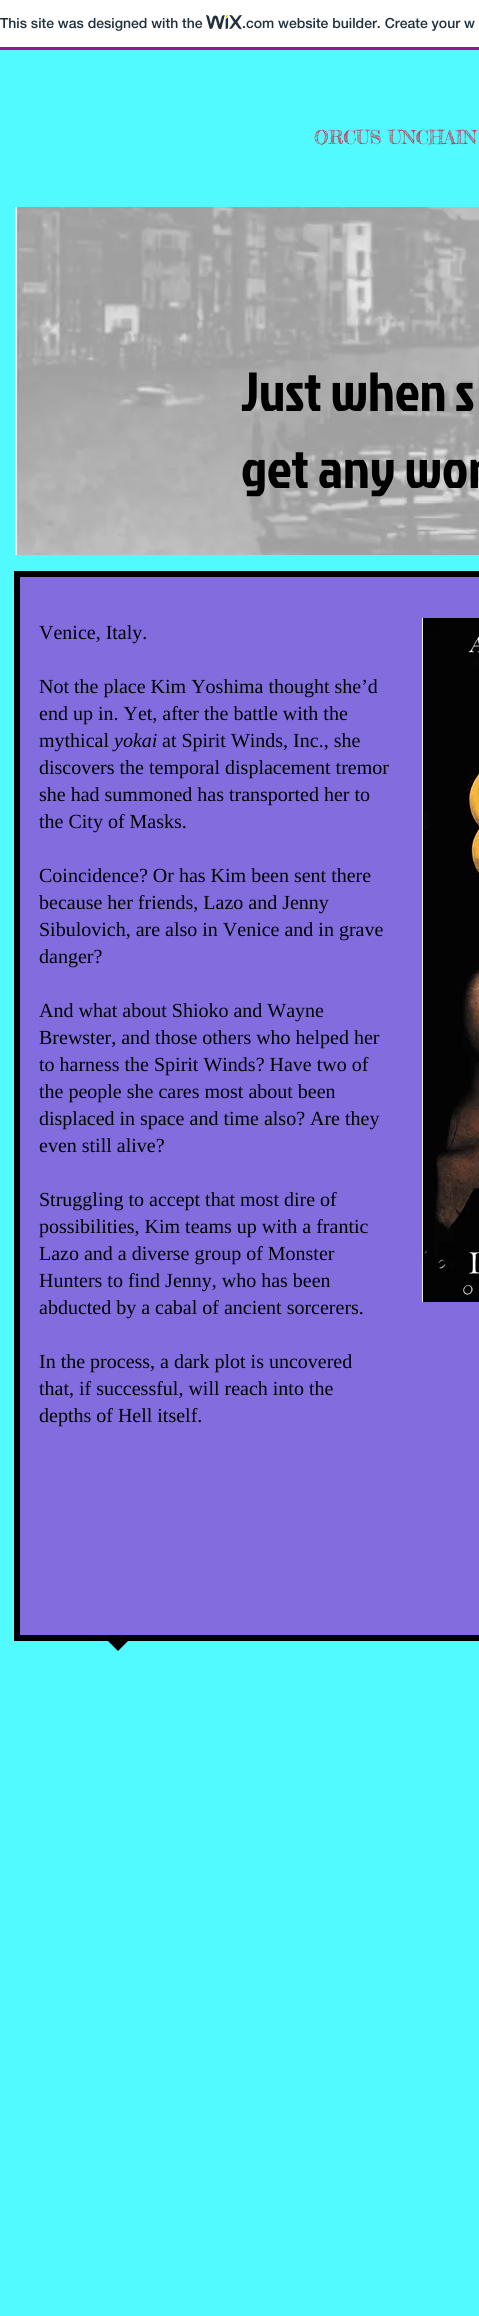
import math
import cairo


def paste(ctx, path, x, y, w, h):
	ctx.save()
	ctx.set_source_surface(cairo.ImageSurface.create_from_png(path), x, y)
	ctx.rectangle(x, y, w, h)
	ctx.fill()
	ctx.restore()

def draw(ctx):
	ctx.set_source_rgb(1, 1, 1)
	ctx.paint()
	ctx.set_source_rgb(0.627, 0.075, 0.557)
	ctx.rectangle(0, 47, 479, 3)
	ctx.fill()
	ctx.select_font_face('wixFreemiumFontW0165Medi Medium')
	ctx.set_font_size(14)
	ctx.set_source_rgb(0.125, 0.188, 0.235)
	ctx.move_to(0, 28)
	ctx.show_text('This site was designed with the')
	paste(ctx, 'media/1.png', 206, 15, 36, 15)
	ctx.move_to(242, 28)
	ctx.show_text('.com website builder. Create your w')
	ctx.set_source_rgb(0.314, 0.98, 0.996)
	ctx.rectangle(0, 50, 479, 2266)
	ctx.fill()
	ctx.select_font_face('Fredericka the Great')
	ctx.set_font_size(19)
	ctx.set_source_rgb(0.827, 0.122, 0.239)
	ctx.move_to(314, 144)
	ctx.show_text('ORCUS UNCHAIN')
	paste(ctx, 'media/2.png', 15, 207, 464, 348)
	ctx.select_font_face('Jockey One')
	ctx.set_font_size(55)
	ctx.set_source_rgb(0, 0, 0)
	ctx.move_to(241, 411)
	ctx.show_text('Just when s')
	ctx.move_to(241, 488)
	ctx.show_text('get any wor')
	ctx.set_source_rgb(0.514, 0.427, 0.871)
	ctx.rectangle(17, 574, 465, 1064)
	ctx.fill_preserve()
	ctx.set_source_rgb(0, 0, 0)
	ctx.set_line_width(6)
	ctx.stroke()
	ctx.select_font_face('Liberation Serif')
	ctx.set_font_size(20)
	for x, y, s in [
		(39, 639, 'Venice, Italy.'),
		(39, 693, 'Not the place Kim Yoshima thought she’d'),
		(39, 720, 'end up in. Yet, after the battle with the'),
		(39, 747, 'mythical'),
	]:
		ctx.move_to(x, y)
		ctx.show_text(s)
	ctx.select_font_face('Liberation Serif', cairo.FONT_SLANT_ITALIC)
	ctx.move_to(114, 747)
	ctx.show_text('yokai')
	ctx.select_font_face('Liberation Serif')
	for x, y, s in [
		(162, 747, 'at Spirit Winds, Inc., she'),
		(39, 774, 'discovers the temporal displacement tremor'),
		(39, 801, 'she had summoned has transported her to'),
		(39, 828, 'the City of Masks.'),
		(39, 882, 'Coincidence? Or has Kim been sent there'),
		(39, 909, 'because her friends, Lazo and Jenny'),
		(39, 936, 'Sibulovich, are also in Venice and in grave'),
		(39, 963, 'danger?'),
		(39, 1017, 'And what about Shioko and Wayne'),
		(39, 1044, 'Brewster, and those others who helped her'),
		(39, 1071, 'to harness the Spirit Winds? Have two of'),
		(39, 1098, 'the people she cares most about been'),
		(39, 1125, 'displaced in space and time also? Are they'),
		(39, 1152, 'even still alive?'),
		(39, 1206, 'Struggling to accept that most dire of'),
		(39, 1233, 'possibilities, Kim teams up with a frantic'),
		(39, 1260, 'Lazo and a diverse group of Monster'),
		(39, 1287, 'Hunters to find Jenny, who has been'),
		(39, 1314, 'abducted by a cabal of ancient sorcerers.'),
		(39, 1368, 'In the process, a dark plot is uncovered'),
		(39, 1395, 'that, if successful, will reach into the'),
		(39, 1422, 'depths of Hell itself.'),
	]:
		ctx.move_to(x, y)
		ctx.show_text(s)
	paste(ctx, 'media/3.png', 422, 618, 57, 684)
	ctx.new_path()
	ctx.move_to(108, 1641)
	ctx.line_to(128, 1641)
	ctx.line_to(118, 1651)
	ctx.close_path()
	ctx.fill()


surface = cairo.ImageSurface(cairo.FORMAT_RGB24, 479, 2316)
ctx = cairo.Context(surface)
options = cairo.FontOptions()
options.set_hint_metrics(cairo.HINT_METRICS_OFF)
options.set_hint_style(cairo.HINT_STYLE_NONE)
ctx.set_font_options(options)
ctx.set_miter_limit(4)
draw(ctx)
surface.write_to_png('image.png')
